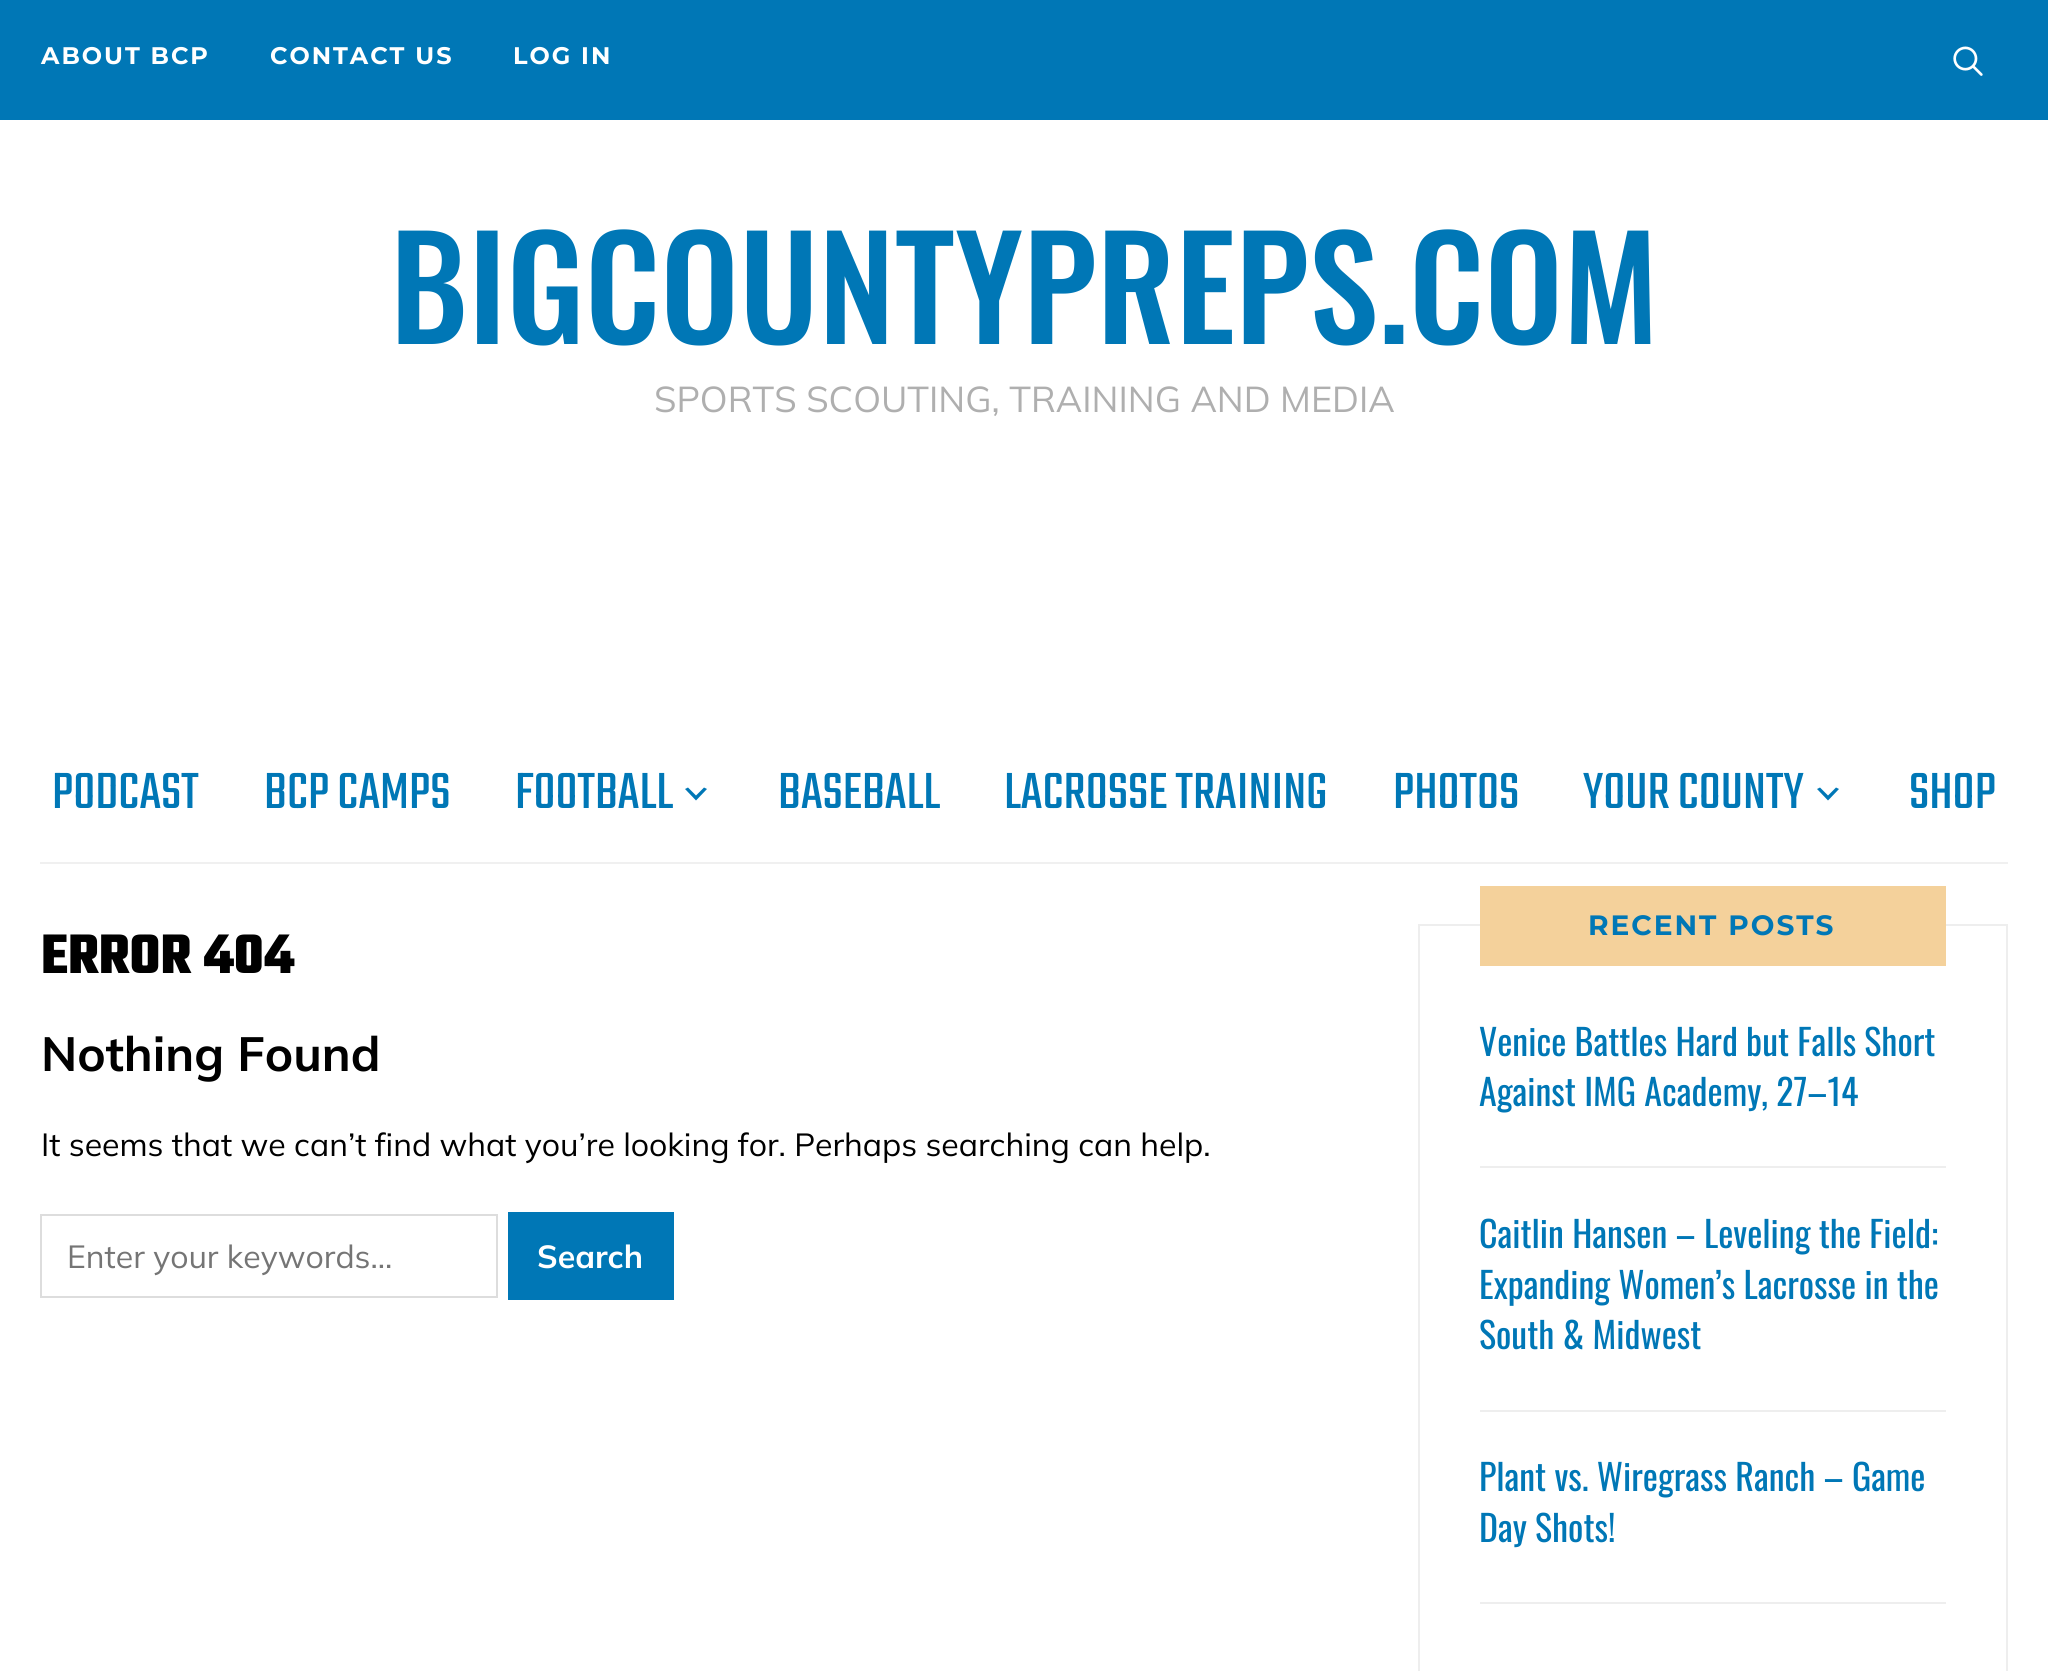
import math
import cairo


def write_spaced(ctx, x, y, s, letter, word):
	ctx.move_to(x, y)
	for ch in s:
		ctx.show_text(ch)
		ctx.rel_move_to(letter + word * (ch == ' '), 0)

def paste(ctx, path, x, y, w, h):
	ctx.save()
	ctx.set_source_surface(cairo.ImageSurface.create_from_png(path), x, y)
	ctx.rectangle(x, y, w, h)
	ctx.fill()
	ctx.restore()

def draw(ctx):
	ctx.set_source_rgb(1, 1, 1)
	ctx.paint()
	ctx.set_source_rgb(0, 0.467, 0.714)
	ctx.rectangle(0, 0, 2048, 120)
	ctx.fill()
	ctx.select_font_face('Montserrat', cairo.FONT_SLANT_NORMAL, cairo.FONT_WEIGHT_BOLD)
	ctx.set_font_size(24)
	ctx.set_source_rgb(1, 1, 1)
	for x, y, s in [
		(41, 64, 'ABOUT BCP'),
		(270, 64, 'CONTACT US'),
		(513, 64, 'LOG IN'),
	]:
		write_spaced(ctx, x, y, s, 2, 0)
	paste(ctx, 'media/1.png', 1953, 46, 30, 30)
	ctx.select_font_face('Oswald Medium')
	ctx.set_font_size(140)
	ctx.set_source_rgb(0, 0.467, 0.714)
	ctx.move_to(390, 344)
	ctx.show_text('BIGCOUNTYPREPS.COM')
	ctx.select_font_face('Mulish')
	ctx.set_font_size(36)
	ctx.set_source_rgb(0.686, 0.686, 0.686)
	ctx.move_to(654, 412)
	ctx.show_text('SPORTS SCOUTING, TRAINING AND MEDIA')
	ctx.set_source_rgb(0.941, 0.941, 0.941)
	ctx.rectangle(40, 862, 1968, 2)
	ctx.fill()
	ctx.select_font_face('Teko')
	ctx.set_font_size(56)
	ctx.set_source_rgb(0, 0.467, 0.714)
	for x, y, s in [
		(52, 808, 'PODCAST'),
		(264, 808, 'BCP CAMPS'),
		(515, 808, 'FOOTBALL'),
	]:
		ctx.move_to(x, y)
		ctx.show_text(s)
	ctx.new_path()
	ctx.move_to(688, 787.5)
	ctx.line_to(696, 795.5)
	ctx.line_to(704, 787.5)
	ctx.line_to(707, 789)
	ctx.line_to(696, 800.5)
	ctx.line_to(685, 789)
	ctx.close_path()
	ctx.fill()
	for x, y, s in [
		(778, 808, 'BASEBALL'),
		(1004, 808, 'LACROSSE TRAINING'),
		(1393, 808, 'PHOTOS'),
		(1583, 808, 'YOUR COUNTY'),
	]:
		ctx.move_to(x, y)
		ctx.show_text(s)
	ctx.new_path()
	ctx.move_to(1820, 787.5)
	ctx.line_to(1828, 795.5)
	ctx.line_to(1836, 787.5)
	ctx.line_to(1839, 789)
	ctx.line_to(1828, 800.5)
	ctx.line_to(1817, 789)
	ctx.close_path()
	ctx.fill()
	ctx.move_to(1909, 808)
	ctx.show_text('SHOP')
	ctx.select_font_face('Teko', cairo.FONT_SLANT_NORMAL, cairo.FONT_WEIGHT_BOLD)
	ctx.set_font_size(60)
	ctx.set_source_rgb(0, 0, 0)
	ctx.move_to(41, 973)
	ctx.show_text('ERROR 404')
	ctx.select_font_face('Mulish', cairo.FONT_SLANT_NORMAL, cairo.FONT_WEIGHT_BOLD)
	ctx.set_font_size(48)
	ctx.move_to(41, 1071)
	ctx.show_text('Nothing Found')
	ctx.select_font_face('Mulish')
	ctx.set_font_size(32)
	ctx.move_to(41, 1156)
	ctx.show_text('It seems that we can’t find what you’re looking for. Perhaps searching can help.')
	ctx.rectangle(41, 1215, 456, 82)
	ctx.set_source_rgb(0.867, 0.867, 0.867)
	ctx.stroke()
	ctx.set_source_rgb(0.459, 0.459, 0.459)
	ctx.move_to(67, 1268)
	ctx.show_text('Enter your keywords...')
	ctx.set_source_rgb(0, 0.467, 0.714)
	ctx.rectangle(508, 1212, 166, 88)
	ctx.fill()
	ctx.select_font_face('Mulish', cairo.FONT_SLANT_NORMAL, cairo.FONT_WEIGHT_BOLD)
	ctx.set_source_rgb(1, 1, 1)
	ctx.move_to(537, 1268)
	ctx.show_text('Search')
	ctx.rectangle(1419, 925, 588, 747)
	ctx.set_source_rgb(0.933, 0.933, 0.933)
	ctx.stroke()
	ctx.set_source_rgb(0.957, 0.82, 0.608)
	ctx.rectangle(1480, 886, 466, 80)
	ctx.fill()
	ctx.select_font_face('Montserrat', cairo.FONT_SLANT_NORMAL, cairo.FONT_WEIGHT_BOLD)
	ctx.set_font_size(28)
	ctx.set_source_rgb(0, 0.467, 0.714)
	write_spaced(ctx, 1588, 935, 'RECENT POSTS', 2, 0)
	ctx.set_source_rgb(0.933, 0.933, 0.933)
	ctx.rectangle(1480, 1166, 466, 2)
	ctx.fill()
	ctx.select_font_face('Oswald')
	ctx.set_font_size(36)
	ctx.set_source_rgb(0, 0.467, 0.714)
	ctx.move_to(1479, 1056)
	ctx.show_text('Venice Battles Hard but Falls Short')
	ctx.move_to(1479, 1106)
	ctx.show_text('Against IMG Academy, 27–14')
	ctx.set_source_rgb(0.933, 0.933, 0.933)
	ctx.rectangle(1480, 1410, 466, 2)
	ctx.fill()
	ctx.set_source_rgb(0, 0.467, 0.714)
	for x, y, s in [
		(1479, 1248, 'Caitlin Hansen – Leveling the Field:'),
		(1479, 1299, 'Expanding Women’s Lacrosse in the'),
		(1479, 1349, 'South & Midwest'),
	]:
		ctx.move_to(x, y)
		ctx.show_text(s)
	ctx.set_source_rgb(0.933, 0.933, 0.933)
	ctx.rectangle(1480, 1602, 466, 2)
	ctx.fill()
	ctx.set_source_rgb(0, 0.467, 0.714)
	ctx.move_to(1479, 1491)
	ctx.show_text('Plant vs. Wiregrass Ranch – Game')
	ctx.move_to(1479, 1542)
	ctx.show_text('Day Shots!')


surface = cairo.ImageSurface(cairo.FORMAT_RGB24, 2048, 1671)
ctx = cairo.Context(surface)
options = cairo.FontOptions()
options.set_hint_metrics(cairo.HINT_METRICS_OFF)
options.set_hint_style(cairo.HINT_STYLE_NONE)
ctx.set_font_options(options)
ctx.set_miter_limit(4)
draw(ctx)
surface.write_to_png('image.png')
